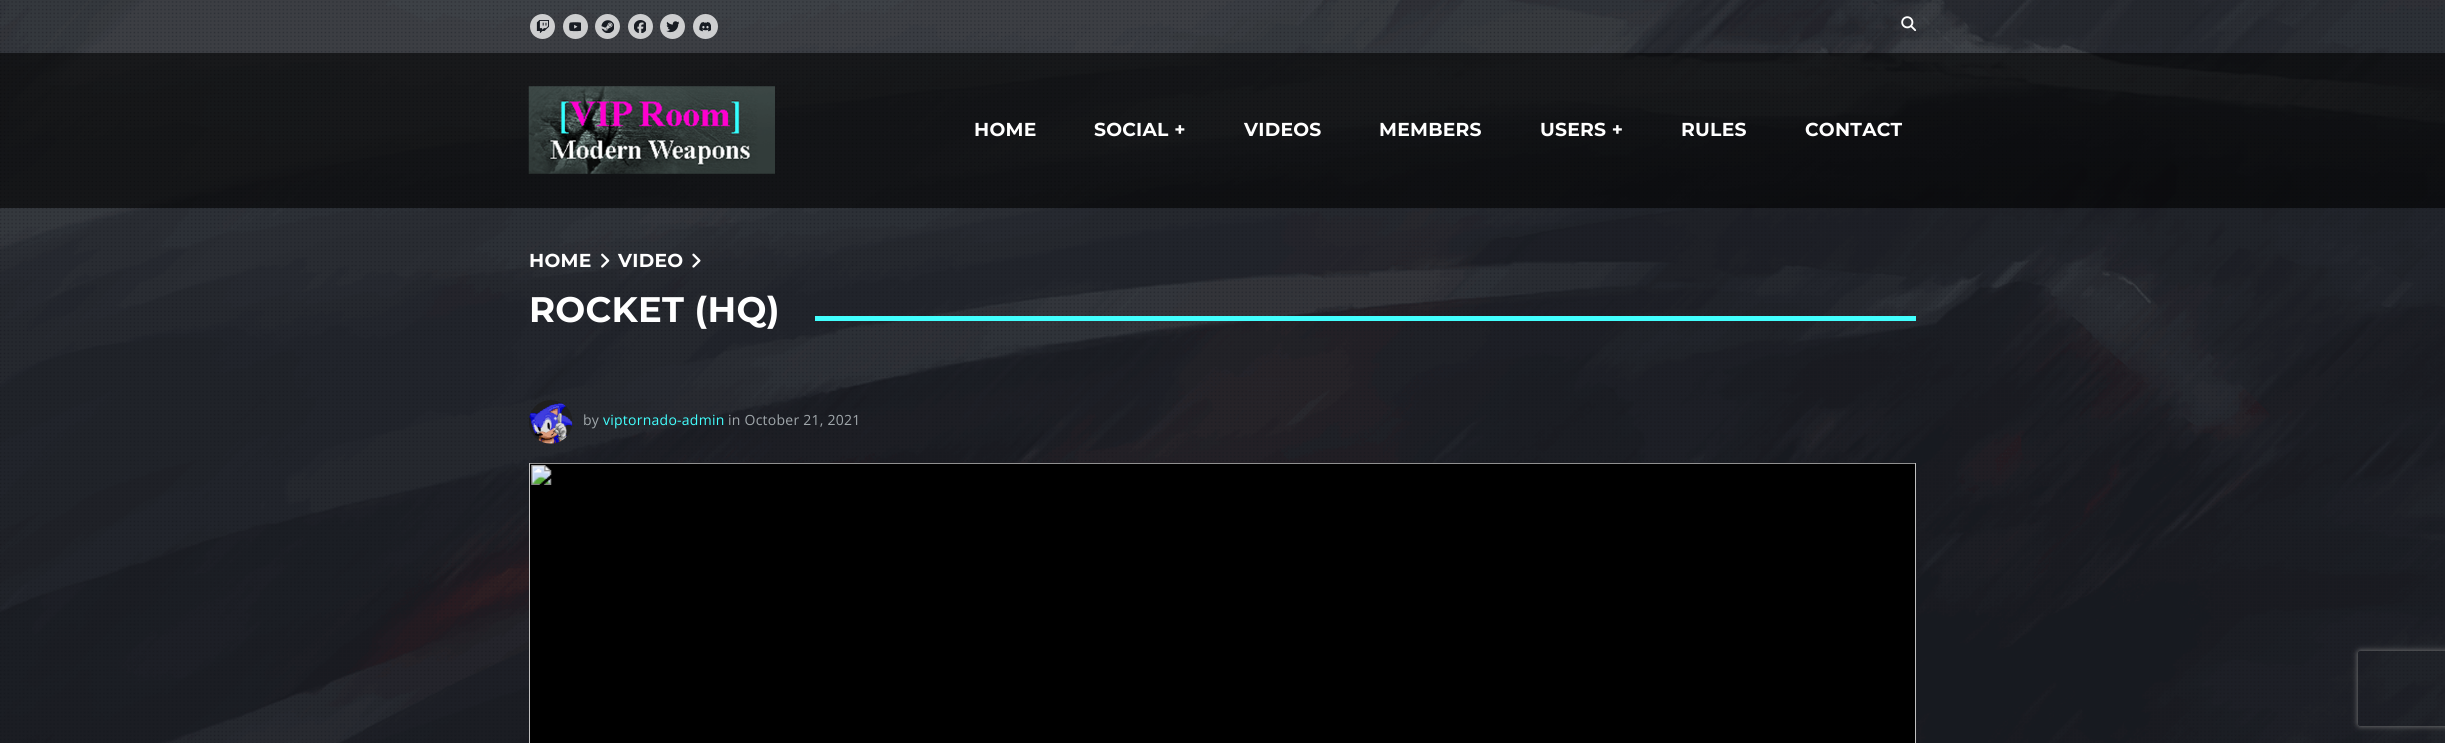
import math
import cairo


def write_spaced(ctx, x, y, s, letter, word):
	ctx.move_to(x, y)
	for ch in s:
		ctx.show_text(ch)
		ctx.rel_move_to(letter + word * (ch == ' '), 0)

def round_path(ctx, x, y, w, h, r):
	ctx.new_sub_path()
	for i, (u, v) in enumerate([(x + w - r, y + h - r), (x + r, y + h - r), (x + r, y + r), (x + w - r, y + r)]):
		ctx.arc(u, v, r, i * math.pi / 2, (i + 1) * math.pi / 2)
	ctx.close_path()

def blur_box(ctx, x, y, w, h, r, blur, alpha):
	ctx.push_group_with_content(cairo.CONTENT_ALPHA)
	ctx.set_operator(cairo.OPERATOR_SOURCE)
	for i in range(15, -16, -2):
		e = blur * i / 6
		if min(w, h) + 2 * e > 0:
			ctx.set_source_rgba(0, 0, 0, alpha * math.erfc((i - 1) / 8.5) / 2)
			round_path(ctx, x - e, y - e, w + 2 * e, h + 2 * e, max(0, min(r + e + blur * .6, min(w, h) / 2 + e)))
			ctx.fill()
	ctx.mask(ctx.pop_group())

def paste(ctx, path, x, y, w, h):
	ctx.save()
	ctx.set_source_surface(cairo.ImageSurface.create_from_png(path), x, y)
	ctx.rectangle(x, y, w, h)
	ctx.fill()
	ctx.restore()

def draw(ctx):
	ctx.set_source_rgb(0.094, 0.11, 0.137)
	ctx.paint()
	paste(ctx, 'media/1.png', 0, 0, 2445, 743)
	ctx.set_source_rgba(1, 1, 1, 0.75)
	ctx.arc(542.5, 26.5, 12.5, 0, 2 * math.pi)
	ctx.fill()
	paste(ctx, 'media/2.png', 536, 20, 13, 13)
	ctx.arc(575.5, 26.5, 12.5, 0, 2 * math.pi)
	ctx.fill()
	paste(ctx, 'media/3.png', 569, 22, 12, 10)
	ctx.arc(607.5, 26.5, 12.5, 0, 2 * math.pi)
	ctx.fill()
	paste(ctx, 'media/4.png', 601, 20, 13, 13)
	ctx.arc(640.5, 26.5, 12.5, 0, 2 * math.pi)
	ctx.fill()
	paste(ctx, 'media/5.png', 634, 20, 12, 13)
	ctx.arc(672.5, 26.5, 12.5, 0, 2 * math.pi)
	ctx.fill()
	paste(ctx, 'media/6.png', 666, 21, 13, 12)
	ctx.arc(705.5, 26.5, 12.5, 0, 2 * math.pi)
	ctx.fill()
	paste(ctx, 'media/7.png', 699, 22, 12, 10)
	paste(ctx, 'media/8.png', 1901, 16, 16, 16)
	ctx.set_source_rgba(0, 0, 0, 0.6)
	ctx.rectangle(0, 53, 2445, 155)
	ctx.fill()
	paste(ctx, 'media/9.png', 528, 86, 247, 88)
	ctx.select_font_face('Montserrat Thin')
	ctx.set_font_size(18.75)
	ctx.set_source_rgb(1, 1, 1)
	for x, y, s in [
		(974, 136, 'HOME'),
		(1094, 136, 'SOCIAL +'),
		(1244, 136, 'VIDEOS'),
		(1379, 136, 'MEMBERS'),
		(1540, 136, 'USERS +'),
		(1681, 136, 'RULES'),
		(1805, 136, 'CONTACT'),
		(529, 267, 'HOME'),
	]:
		write_spaced(ctx, x, y, s, 0.25, 0)
	paste(ctx, 'media/10.png', 601, 253, 9, 15)
	write_spaced(ctx, 618, 267, 'VIDEO', 0.25, 0)
	paste(ctx, 'media/11.png', 692, 253, 9, 15)
	ctx.set_font_size(35.5)
	write_spaced(ctx, 529, 322, 'ROCKET (HQ)', 0.25, 0)
	ctx.set_source_rgb(0.259, 1, 0.996)
	ctx.rectangle(815, 316, 1101, 5)
	ctx.fill()
	paste(ctx, 'media/12.png', 529, 400, 44, 44)
	ctx.select_font_face('Open Sans')
	ctx.set_font_size(14)
	ctx.set_source_rgb(0.627, 0.655, 0.671)
	write_spaced(ctx, 583, 425, 'by', 0.25, 0)
	ctx.set_source_rgb(0.259, 1, 0.996)
	write_spaced(ctx, 603, 425, 'viptornado-admin', 0.25, 0)
	ctx.set_source_rgb(0.627, 0.655, 0.671)
	write_spaced(ctx, 728, 425, 'in October 21, 2021', 0.25, 0)
	paste(ctx, 'media/13.png', 529, 463, 1387, 280)
	ctx.save()
	ctx.set_fill_rule(cairo.FILL_RULE_EVEN_ODD)
	ctx.new_path()
	ctx.move_to(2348, 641)
	ctx.line_to(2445, 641)
	ctx.line_to(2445, 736)
	ctx.line_to(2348, 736)
	ctx.close_path()
	ctx.move_to(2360.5, 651)
	ctx.line_to(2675.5, 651)
	ctx.curve_to(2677, 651, 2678, 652, 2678, 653.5)
	ctx.line_to(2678, 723.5)
	ctx.curve_to(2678, 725, 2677, 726, 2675.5, 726)
	ctx.line_to(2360.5, 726)
	ctx.curve_to(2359, 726, 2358, 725, 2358, 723.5)
	ctx.line_to(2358, 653.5)
	ctx.curve_to(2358, 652, 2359, 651, 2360.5, 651)
	ctx.close_path()
	ctx.clip()
	ctx.set_source_rgb(0.502, 0.502, 0.502)
	blur_box(ctx, 2358, 651, 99, 75, 2.5, 3, 1)
	ctx.restore()


surface = cairo.ImageSurface(cairo.FORMAT_RGB24, 2445, 743)
ctx = cairo.Context(surface)
options = cairo.FontOptions()
options.set_hint_metrics(cairo.HINT_METRICS_OFF)
options.set_hint_style(cairo.HINT_STYLE_NONE)
ctx.set_font_options(options)
ctx.set_miter_limit(4)
draw(ctx)
surface.write_to_png('image.png')
